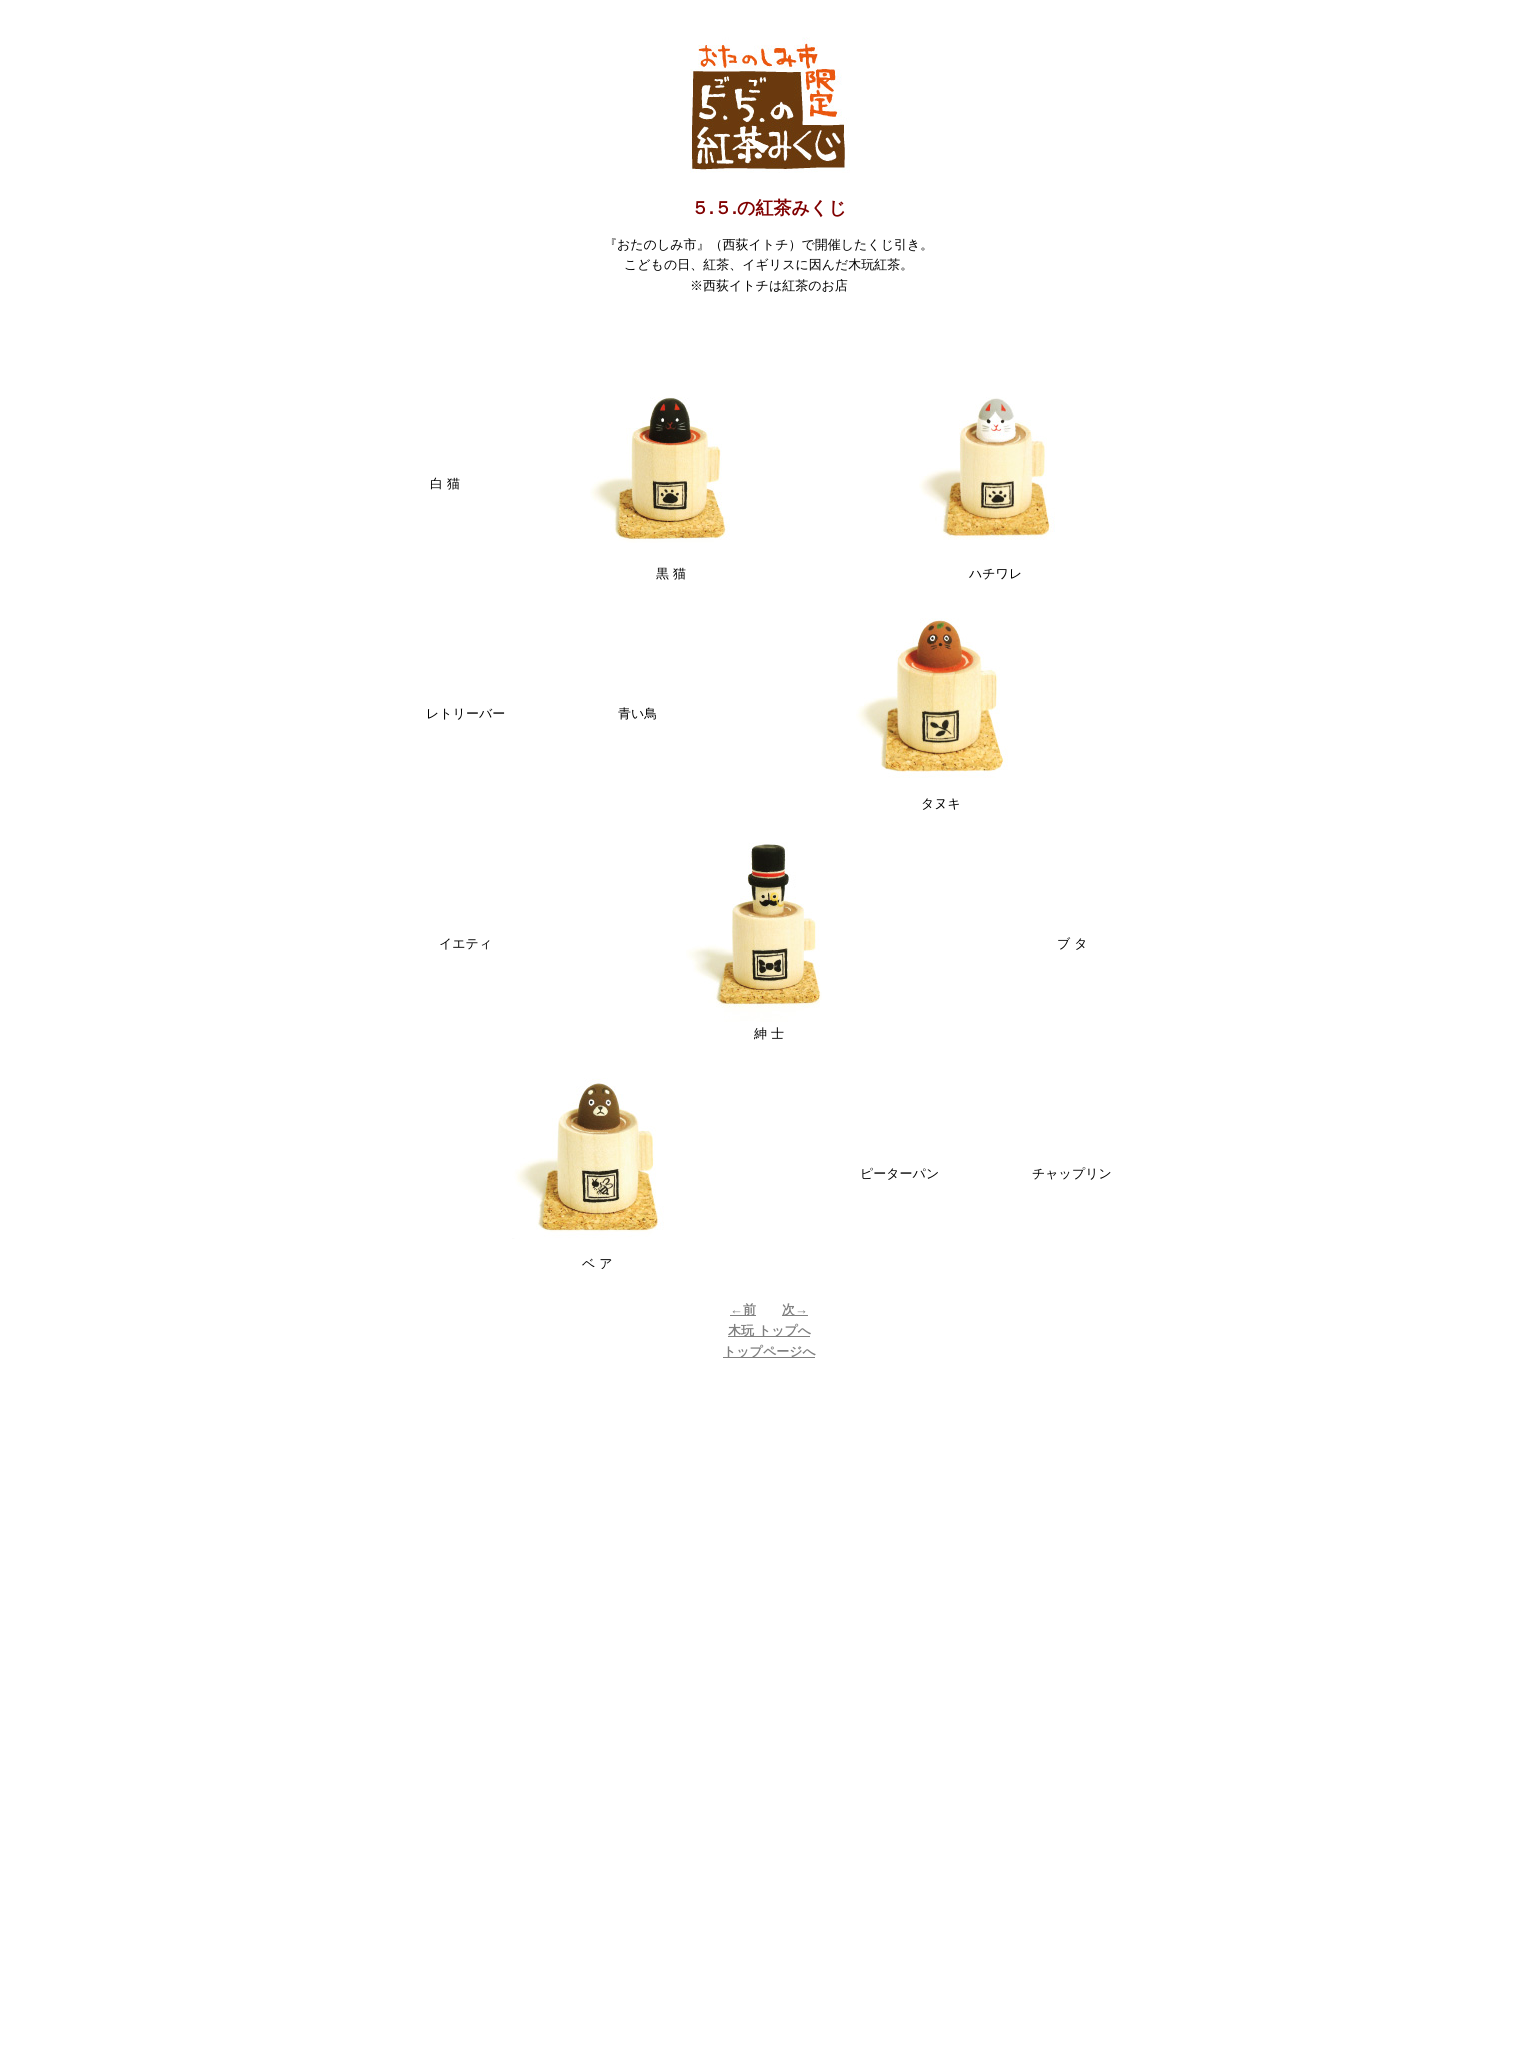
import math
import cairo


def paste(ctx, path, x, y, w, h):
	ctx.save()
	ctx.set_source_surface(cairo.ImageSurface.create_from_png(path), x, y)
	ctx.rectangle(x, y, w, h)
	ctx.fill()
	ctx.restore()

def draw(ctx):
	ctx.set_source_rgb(1, 1, 1)
	ctx.paint()
	paste(ctx, 'media/1.png', 690, 37, 160, 136)
	ctx.select_font_face('WenQuanYi Zen Hei', cairo.FONT_SLANT_NORMAL, cairo.FONT_WEIGHT_BOLD)
	ctx.set_font_size(18)
	ctx.set_source_rgb(0.502, 0, 0)
	ctx.move_to(691, 214)
	ctx.show_text('５')
	ctx.select_font_face('Liberation Sans', cairo.FONT_SLANT_NORMAL, cairo.FONT_WEIGHT_BOLD)
	ctx.move_to(709, 214)
	ctx.show_text('.')
	ctx.select_font_face('WenQuanYi Zen Hei', cairo.FONT_SLANT_NORMAL, cairo.FONT_WEIGHT_BOLD)
	ctx.move_to(714, 214)
	ctx.show_text('５')
	ctx.select_font_face('Liberation Sans', cairo.FONT_SLANT_NORMAL, cairo.FONT_WEIGHT_BOLD)
	ctx.move_to(732, 214)
	ctx.show_text('.')
	ctx.select_font_face('WenQuanYi Zen Hei', cairo.FONT_SLANT_NORMAL, cairo.FONT_WEIGHT_BOLD)
	ctx.move_to(737, 214)
	ctx.show_text('の紅茶みくじ')
	ctx.select_font_face('WenQuanYi Zen Hei Medium')
	ctx.set_font_size(13)
	ctx.set_source_rgb(0, 0, 0)
	for x, y, s in [
		(604, 249, '『おたのしみ市』（西荻イトチ）で開催したくじ引き。'),
		(624, 269, 'こどもの日、紅茶、イギリスに因んだ木玩紅茶。'),
		(690, 290, '※西荻イトチは紅茶のお店'),
		(430, 488, '白 猫'),
	]:
		ctx.move_to(x, y)
		ctx.show_text(s)
	paste(ctx, 'media/2.png', 590, 397, 140, 146)
	ctx.move_to(656, 578)
	ctx.show_text('黒 猫')
	paste(ctx, 'media/3.png', 919, 397, 136, 143)
	for x, y, s in [
		(969, 578, 'ハチワレ'),
		(426, 718, 'レトリーバー'),
		(618, 718, '青い鳥'),
	]:
		ctx.move_to(x, y)
		ctx.show_text(s)
	paste(ctx, 'media/4.png', 856, 618, 152, 160)
	for x, y, s in [
		(921, 808, 'タヌキ'),
		(439, 948, 'イエティ'),
		(1057, 948, 'ブ タ'),
	]:
		ctx.move_to(x, y)
		ctx.show_text(s)
	paste(ctx, 'media/5.png', 686, 842, 136, 180)
	for x, y, s in [
		(754, 1038, '紳 士'),
		(860, 1178, 'ピーターパン'),
		(1032, 1178, 'チャップリン'),
	]:
		ctx.move_to(x, y)
		ctx.show_text(s)
	paste(ctx, 'media/6.png', 512, 1078, 152, 161)
	ctx.move_to(582, 1268)
	ctx.show_text('ベ ア')
	ctx.select_font_face('Liberation Sans', cairo.FONT_SLANT_NORMAL, cairo.FONT_WEIGHT_BOLD)
	ctx.set_source_rgb(0.502, 0.502, 0.502)
	ctx.move_to(730, 1314)
	ctx.show_text('←')
	ctx.rectangle(730, 1315, 26, 1)
	ctx.fill()
	ctx.select_font_face('WenQuanYi Zen Hei', cairo.FONT_SLANT_NORMAL, cairo.FONT_WEIGHT_BOLD)
	ctx.move_to(743, 1314)
	ctx.show_text('前')
	ctx.rectangle(782, 1315, 26, 1)
	ctx.fill()
	ctx.move_to(782, 1314)
	ctx.show_text('次')
	ctx.select_font_face('Liberation Sans', cairo.FONT_SLANT_NORMAL, cairo.FONT_WEIGHT_BOLD)
	ctx.move_to(795, 1314)
	ctx.show_text('→')
	ctx.rectangle(728, 1336, 82, 1)
	ctx.fill()
	ctx.select_font_face('WenQuanYi Zen Hei', cairo.FONT_SLANT_NORMAL, cairo.FONT_WEIGHT_BOLD)
	ctx.move_to(728, 1335)
	ctx.show_text('木玩 トップへ')
	ctx.rectangle(723, 1357, 92, 1)
	ctx.fill()
	ctx.move_to(723, 1356)
	ctx.show_text('トップページへ')


surface = cairo.ImageSurface(cairo.FORMAT_RGB24, 1538, 2057)
ctx = cairo.Context(surface)
options = cairo.FontOptions()
options.set_hint_metrics(cairo.HINT_METRICS_OFF)
options.set_hint_style(cairo.HINT_STYLE_NONE)
ctx.set_font_options(options)
ctx.set_miter_limit(4)
draw(ctx)
surface.write_to_png('image.png')
